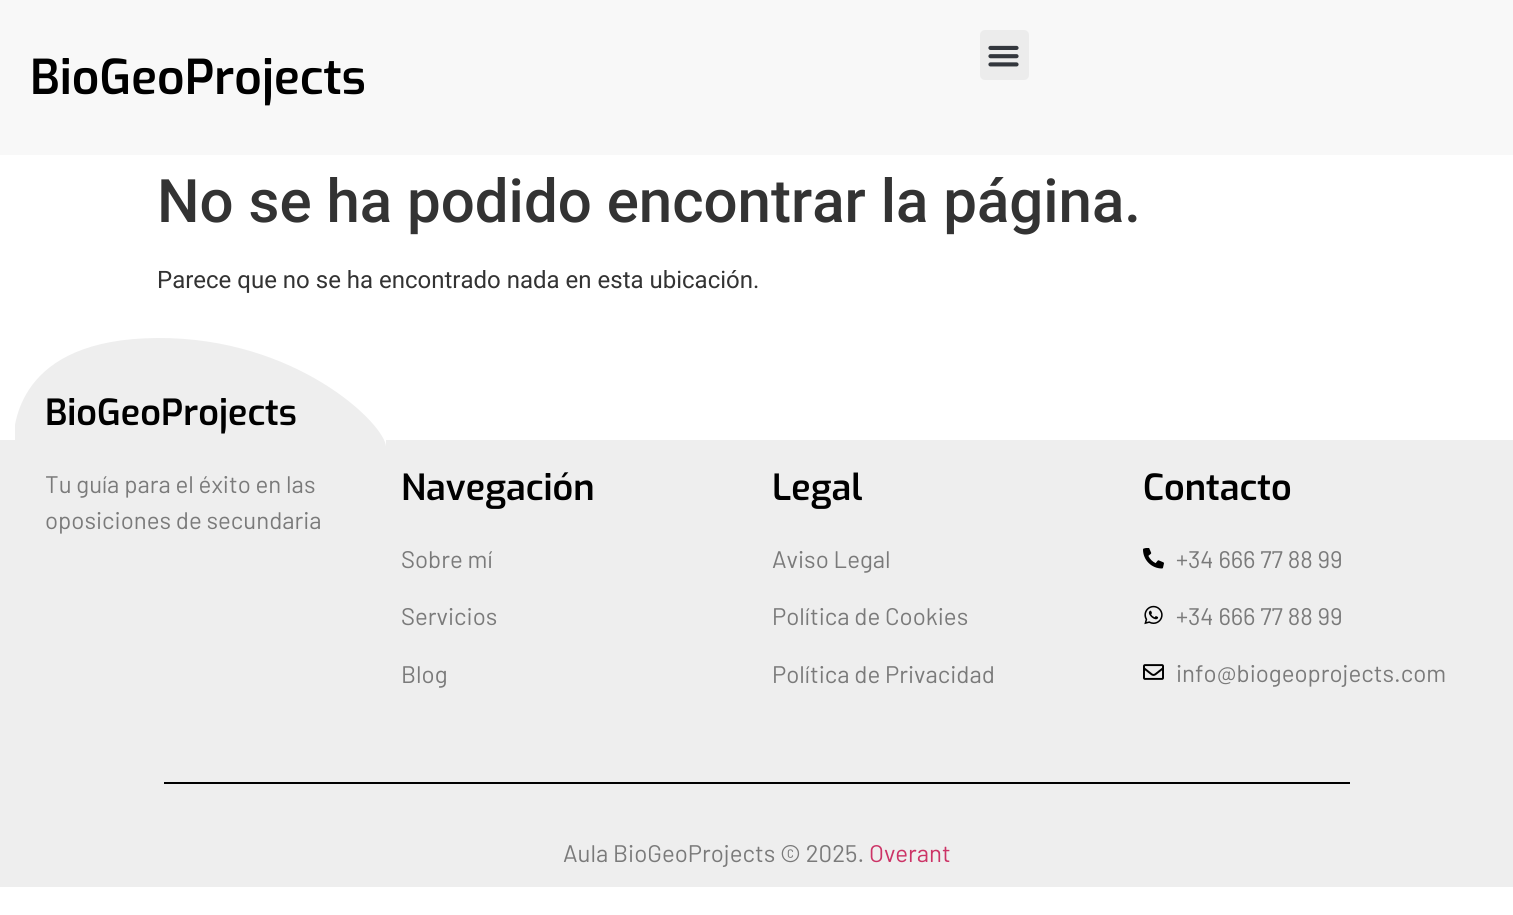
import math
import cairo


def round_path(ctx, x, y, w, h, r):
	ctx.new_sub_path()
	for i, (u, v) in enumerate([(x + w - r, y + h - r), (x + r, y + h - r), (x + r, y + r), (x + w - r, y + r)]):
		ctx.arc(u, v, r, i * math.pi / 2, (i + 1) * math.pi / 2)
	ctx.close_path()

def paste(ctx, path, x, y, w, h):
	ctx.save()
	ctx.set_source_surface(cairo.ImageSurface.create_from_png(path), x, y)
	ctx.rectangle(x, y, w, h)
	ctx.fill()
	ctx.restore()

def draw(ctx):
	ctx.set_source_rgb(1, 1, 1)
	ctx.paint()
	ctx.set_source_rgb(0.969, 0.969, 0.969)
	ctx.rectangle(0, 0, 1513, 155)
	ctx.fill()
	ctx.select_font_face('Exo SemiBold')
	ctx.set_font_size(48)
	ctx.set_source_rgb(0, 0, 0)
	ctx.move_to(30, 94)
	ctx.show_text('BioGeoProjects')
	ctx.set_source_rgb(0.922, 0.922, 0.922)
	round_path(ctx, 980, 30, 49, 50, 5)
	ctx.fill()
	paste(ctx, 'media/1.png', 988, 45, 31, 22)
	ctx.select_font_face('Roboto Medium')
	ctx.set_font_size(60)
	ctx.set_source_rgb(0.2, 0.2, 0.2)
	ctx.move_to(157, 222)
	ctx.show_text('No se ha podido encontrar la página.')
	ctx.select_font_face('Roboto')
	ctx.set_font_size(24)
	ctx.move_to(157, 288)
	ctx.show_text('Parece que no se ha encontrado nada en esta ubicación.')
	ctx.set_source_rgb(0.933, 0.933, 0.933)
	ctx.rectangle(0, 440, 1513, 447)
	ctx.fill()
	ctx.rectangle(15, 338, 371, 102)
	ctx.fill()
	ctx.save()
	ctx.rectangle(15, 333, 371, 113)
	ctx.clip()
	ctx.set_source_rgb(1, 1, 1)
	ctx.new_path()
	ctx.move_to(157, 338)
	ctx.curve_to(297, 337, 386, 425, 386, 447)
	ctx.line_to(386, 334)
	ctx.line_to(13, 334)
	ctx.line_to(13, 447)
	ctx.curve_to(13, 425, 17, 339, 157, 338)
	ctx.close_path()
	ctx.fill()
	ctx.restore()
	ctx.select_font_face('Exo SemiBold')
	ctx.set_font_size(36)
	ctx.set_source_rgb(0, 0, 0)
	ctx.move_to(45, 425)
	ctx.show_text('BioGeoProjects')
	ctx.select_font_face('Barlow')
	ctx.set_font_size(24)
	ctx.set_source_rgb(0.478, 0.478, 0.478)
	ctx.move_to(45, 493)
	ctx.show_text('Tu guía para el éxito en las')
	ctx.move_to(45, 529)
	ctx.show_text('oposiciones de secundaria')
	ctx.select_font_face('Exo SemiBold')
	ctx.set_font_size(36)
	ctx.set_source_rgb(0, 0, 0)
	ctx.move_to(401, 500)
	ctx.show_text('Navegación')
	ctx.select_font_face('Barlow')
	ctx.set_font_size(24)
	ctx.set_source_rgb(0.478, 0.478, 0.478)
	for x, y, s in [
		(401, 568, 'Sobre mí'),
		(401, 625, 'Servicios'),
		(401, 683, 'Blog'),
	]:
		ctx.move_to(x, y)
		ctx.show_text(s)
	ctx.select_font_face('Exo SemiBold')
	ctx.set_font_size(36)
	ctx.set_source_rgb(0, 0, 0)
	ctx.move_to(772, 500)
	ctx.show_text('Legal')
	ctx.select_font_face('Barlow')
	ctx.set_font_size(24)
	ctx.set_source_rgb(0.478, 0.478, 0.478)
	for x, y, s in [
		(772, 568, 'Aviso Legal'),
		(772, 625, 'Política de Cookies'),
		(772, 683, 'Política de Privacidad'),
	]:
		ctx.move_to(x, y)
		ctx.show_text(s)
	ctx.select_font_face('Exo SemiBold')
	ctx.set_font_size(36)
	ctx.set_source_rgb(0, 0, 0)
	ctx.move_to(1143, 500)
	ctx.show_text('Contacto')
	paste(ctx, 'media/2.png', 1143, 548, 21, 21)
	ctx.select_font_face('Barlow')
	ctx.set_font_size(24)
	ctx.set_source_rgb(0.478, 0.478, 0.478)
	ctx.move_to(1176, 568)
	ctx.show_text('+34 666 77 88 99')
	paste(ctx, 'media/3.png', 1144, 605, 19, 20)
	ctx.move_to(1176, 625)
	ctx.show_text('+34 666 77 88 99')
	paste(ctx, 'media/4.png', 1143, 664, 21, 16)
	ctx.move_to(1176, 682)
	ctx.show_text('info@biogeoprojects.com')
	ctx.set_source_rgb(0, 0, 0)
	ctx.rectangle(164, 782, 1186, 2)
	ctx.fill()
	ctx.set_source_rgb(0.478, 0.478, 0.478)
	ctx.move_to(563, 862)
	ctx.show_text('Aula BioGeoProjects © 2025.')
	ctx.set_source_rgb(0.8, 0.2, 0.4)
	ctx.move_to(869, 862)
	ctx.show_text('Overant')


surface = cairo.ImageSurface(cairo.FORMAT_RGB24, 1513, 915)
ctx = cairo.Context(surface)
options = cairo.FontOptions()
options.set_hint_metrics(cairo.HINT_METRICS_OFF)
options.set_hint_style(cairo.HINT_STYLE_NONE)
ctx.set_font_options(options)
ctx.set_miter_limit(4)
draw(ctx)
surface.write_to_png('image.png')
